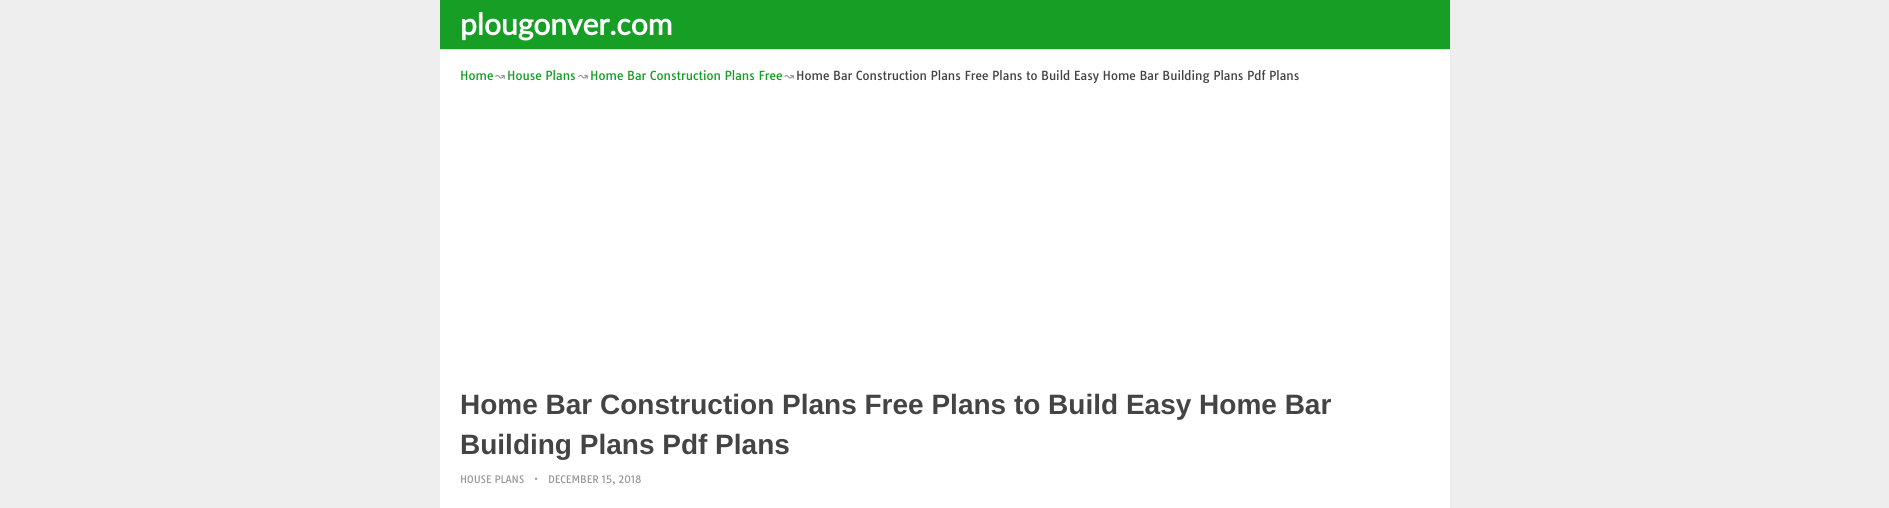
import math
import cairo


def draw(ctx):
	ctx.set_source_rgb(0.933, 0.933, 0.933)
	ctx.paint()
	ctx.set_source_rgb(0.086, 0.62, 0.145)
	ctx.rectangle(440, 0, 1010, 49)
	ctx.fill()
	ctx.set_source_rgb(0.859, 0.871, 0.886)
	ctx.rectangle(440, 49, 1010, 1)
	ctx.fill()
	ctx.select_font_face('Lato', cairo.FONT_SLANT_NORMAL, cairo.FONT_WEIGHT_BOLD)
	ctx.set_font_size(30)
	ctx.set_source_rgb(1, 1, 1)
	ctx.move_to(460, 35)
	ctx.show_text('plougonver.com')
	ctx.rectangle(440, 50, 1010, 458)
	ctx.fill()
	ctx.select_font_face('Tauri')
	ctx.set_font_size(12)
	ctx.set_source_rgb(0.086, 0.62, 0.145)
	ctx.move_to(460, 80)
	ctx.show_text('Home')
	ctx.select_font_face('DejaVu Sans')
	ctx.set_source_rgb(0.533, 0.533, 0.533)
	ctx.move_to(495, 80)
	ctx.show_text('↝')
	ctx.select_font_face('Tauri')
	ctx.set_source_rgb(0.086, 0.62, 0.145)
	ctx.move_to(507, 80)
	ctx.show_text('House Plans')
	ctx.select_font_face('DejaVu Sans')
	ctx.set_source_rgb(0.533, 0.533, 0.533)
	ctx.move_to(578, 80)
	ctx.show_text('↝')
	ctx.select_font_face('Tauri')
	ctx.set_source_rgb(0.086, 0.62, 0.145)
	ctx.move_to(590, 80)
	ctx.show_text('Home Bar Construction Plans Free')
	ctx.select_font_face('DejaVu Sans')
	ctx.set_source_rgb(0.533, 0.533, 0.533)
	ctx.move_to(784, 80)
	ctx.show_text('↝')
	ctx.select_font_face('Tauri')
	ctx.set_source_rgb(0.267, 0.267, 0.267)
	ctx.move_to(796, 80)
	ctx.show_text('Home Bar Construction Plans Free Plans to Build Easy Home Bar Building Plans Pdf Plans')
	ctx.select_font_face('Liberation Sans', cairo.FONT_SLANT_NORMAL, cairo.FONT_WEIGHT_BOLD)
	ctx.set_font_size(28)
	ctx.move_to(460, 414)
	ctx.show_text('Home Bar Construction Plans Free Plans to Build Easy Home Bar')
	ctx.move_to(460, 454)
	ctx.show_text('Building Plans Pdf Plans')
	ctx.select_font_face('Tauri')
	ctx.set_font_size(10)
	ctx.set_source_rgb(0.6, 0.6, 0.6)
	for x, y, s in [
		(460, 483, 'HOUSE PLANS'),
		(534, 483, '•'),
		(548, 483, 'DECEMBER 15, 2018'),
	]:
		ctx.move_to(x, y)
		ctx.show_text(s)


surface = cairo.ImageSurface(cairo.FORMAT_RGB24, 1889, 508)
ctx = cairo.Context(surface)
options = cairo.FontOptions()
options.set_hint_metrics(cairo.HINT_METRICS_OFF)
options.set_hint_style(cairo.HINT_STYLE_NONE)
ctx.set_font_options(options)
ctx.set_miter_limit(4)
draw(ctx)
surface.write_to_png('image.png')
